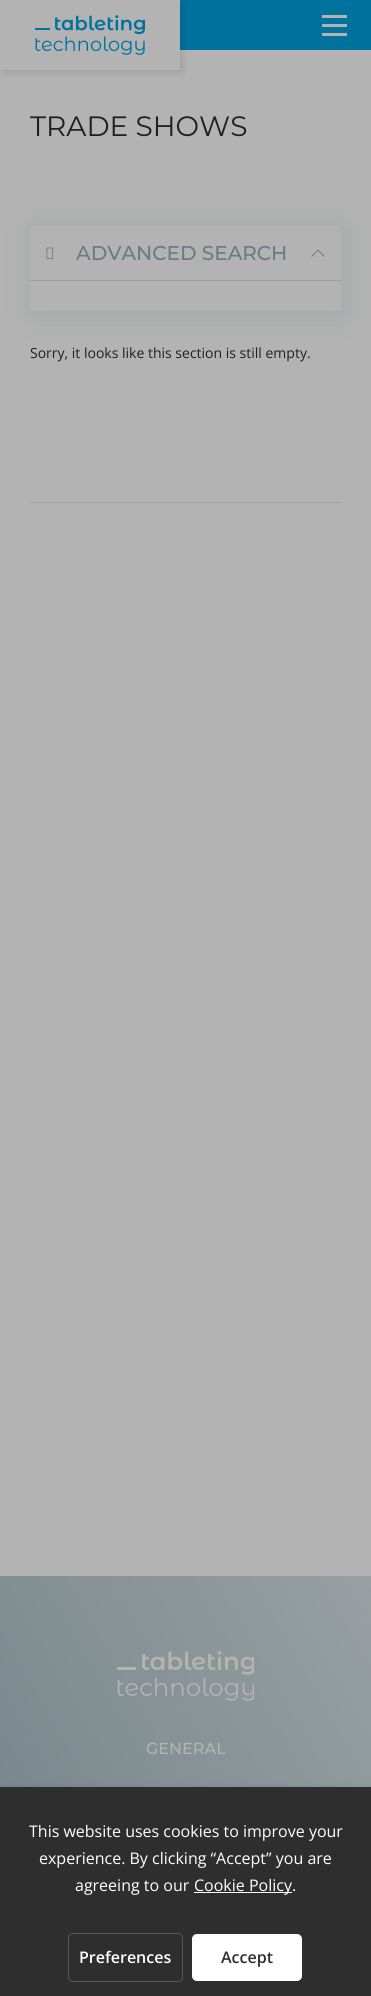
import math
import cairo


def round_path(ctx, x, y, w, h, r):
	ctx.new_sub_path()
	for i, (u, v) in enumerate([(x + w - r, y + h - r), (x + r, y + h - r), (x + r, y + r), (x + w - r, y + r)]):
		ctx.arc(u, v, r, i * math.pi / 2, (i + 1) * math.pi / 2)
	ctx.close_path()

def blur_box(ctx, x, y, w, h, r, blur, alpha):
	ctx.push_group_with_content(cairo.CONTENT_ALPHA)
	ctx.set_operator(cairo.OPERATOR_SOURCE)
	for i in range(15, -16, -2):
		e = blur * i / 6
		if min(w, h) + 2 * e > 0:
			ctx.set_source_rgba(0, 0, 0, alpha * math.erfc((i - 1) / 8.5) / 2)
			round_path(ctx, x - e, y - e, w + 2 * e, h + 2 * e, max(0, min(r + e + blur * .6, min(w, h) / 2 + e)))
			ctx.fill()
	ctx.mask(ctx.pop_group())

def paste(ctx, path, x, y, w, h):
	ctx.save()
	ctx.set_source_surface(cairo.ImageSurface.create_from_png(path), x, y)
	ctx.rectangle(x, y, w, h)
	ctx.fill()
	ctx.restore()

def draw(ctx):
	ctx.set_source_rgb(0.702, 0.702, 0.702)
	ctx.paint()
	ctx.set_source_rgb(0, 0.447, 0.616)
	ctx.rectangle(180, 0, 191, 50)
	ctx.fill()
	ctx.set_source_rgb(0, 0, 0)
	blur_box(ctx, 3, 3, 180, 70, 0, 3, 0.1)
	ctx.set_source_rgb(0.702, 0.702, 0.702)
	ctx.rectangle(0, 0, 180, 70)
	ctx.fill()
	paste(ctx, 'media/1.png', 35, 15, 110, 40)
	ctx.rectangle(322, 15, 25, 3)
	ctx.rectangle(322, 24, 25, 3)
	ctx.rectangle(322, 33, 25, 3)
	ctx.fill()
	ctx.select_font_face('Montserrat')
	ctx.set_font_size(28)
	ctx.set_source_rgb(0.125, 0.125, 0.125)
	ctx.move_to(30, 136)
	ctx.show_text('TRADE SHOWS')
	ctx.save()
	ctx.set_fill_rule(cairo.FILL_RULE_EVEN_ODD)
	ctx.new_path()
	ctx.move_to(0, 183)
	ctx.line_to(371, 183)
	ctx.line_to(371, 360)
	ctx.line_to(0, 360)
	ctx.close_path()
	ctx.move_to(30, 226)
	ctx.line_to(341, 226)
	ctx.line_to(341, 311)
	ctx.line_to(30, 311)
	ctx.close_path()
	ctx.clip()
	ctx.set_source_rgb(0, 0.196, 0.275)
	blur_box(ctx, 33, 229, 311, 85, 0, 15, 0.1)
	ctx.restore()
	paste(ctx, 'media/2.png', 46, 247, 8, 12)
	ctx.select_font_face('Montserrat Medium')
	ctx.set_font_size(20)
	ctx.set_source_rgb(0.412, 0.486, 0.514)
	ctx.move_to(76, 260)
	ctx.show_text('ADVANCED SEARCH')
	paste(ctx, 'media/3.png', 311, 249, 14, 8)
	ctx.set_source_rgb(0.596, 0.627, 0.635)
	ctx.rectangle(30, 280, 311, 1)
	ctx.fill()
	ctx.select_font_face('Open Sans')
	ctx.set_font_size(14)
	ctx.set_source_rgb(0.125, 0.125, 0.125)
	ctx.move_to(30, 358)
	ctx.show_text('Sorry, it looks like this section is still empty.')
	ctx.set_source_rgb(0.596, 0.627, 0.635)
	ctx.rectangle(30, 502, 311, 1)
	ctx.fill()
	gradient = cairo.LinearGradient(-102, 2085, 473, 1753)
	gradient.add_color_stop_rgba(0, 0.412, 0.486, 0.514, 1)
	gradient.add_color_stop_rgba(1, 0.596, 0.627, 0.635, 1)
	ctx.set_source(gradient)
	ctx.rectangle(0, 1576, 371, 211)
	ctx.fill()
	paste(ctx, 'media/4.png', 117, 1651, 137, 50)
	ctx.select_font_face('Montserrat Medium')
	ctx.set_font_size(16)
	ctx.set_source_rgb(0.702, 0.702, 0.702)
	ctx.move_to(146, 1754)
	ctx.show_text('GENERAL')
	ctx.set_source_rgb(0, 0, 0)
	blur_box(ctx, 0, 1789, 371, 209, 0, 4, 0.2)
	ctx.set_source_rgb(0.18, 0.18, 0.18)
	ctx.rectangle(0, 1787, 371, 209)
	ctx.fill()
	ctx.select_font_face('Open Sans')
	ctx.set_source_rgb(1, 1, 1)
	for x, y, s in [
		(29, 1837, 'This website uses cookies to improve your'),
		(39, 1864, 'experience. By clicking “Accept” you are'),
		(75, 1891, 'agreeing to our'),
	]:
		ctx.move_to(x, y)
		ctx.show_text(s)
	ctx.rectangle(194, 1892, 98, 1)
	ctx.fill()
	ctx.move_to(194, 1891)
	ctx.show_text('Cookie Policy.')
	round_path(ctx, 68.5, 1933.5, 114, 48, 4.5)
	ctx.set_source_rgb(0.345, 0.345, 0.345)
	ctx.set_line_width(1)
	ctx.stroke()
	ctx.select_font_face('Open Sans SemiBold')
	ctx.set_source_rgb(1, 1, 1)
	ctx.move_to(79, 1963)
	ctx.show_text('Preferences')
	round_path(ctx, 192, 1934, 110, 47, 5)
	ctx.fill()
	ctx.set_source_rgb(0.18, 0.18, 0.18)
	ctx.move_to(221, 1963)
	ctx.show_text('Accept')


surface = cairo.ImageSurface(cairo.FORMAT_RGB24, 371, 1996)
ctx = cairo.Context(surface)
options = cairo.FontOptions()
options.set_hint_metrics(cairo.HINT_METRICS_OFF)
options.set_hint_style(cairo.HINT_STYLE_NONE)
ctx.set_font_options(options)
ctx.set_miter_limit(4)
draw(ctx)
surface.write_to_png('image.png')
